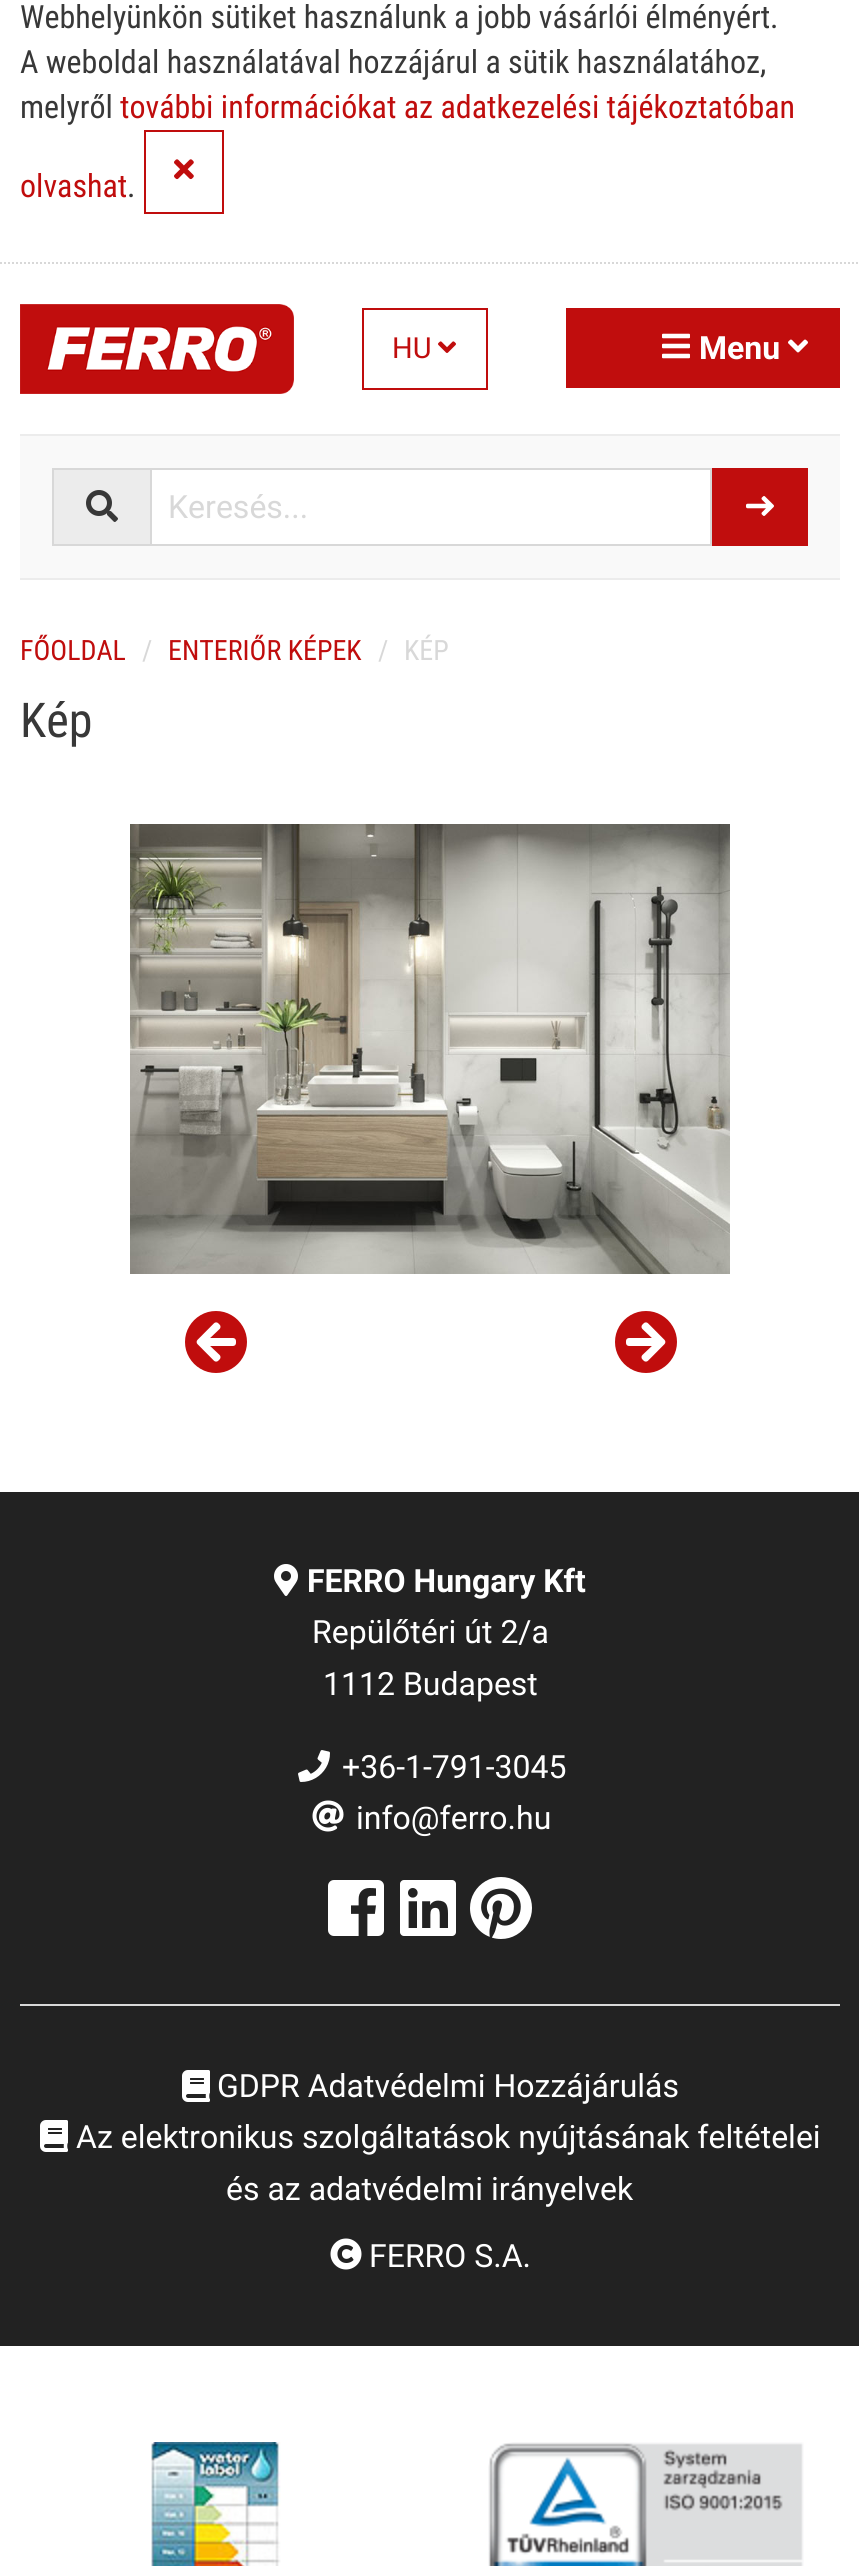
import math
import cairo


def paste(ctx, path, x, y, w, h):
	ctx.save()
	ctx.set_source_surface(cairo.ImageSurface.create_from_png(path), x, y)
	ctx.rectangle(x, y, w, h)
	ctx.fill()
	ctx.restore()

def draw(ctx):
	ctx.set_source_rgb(1, 1, 1)
	ctx.paint()
	ctx.new_path()
	ctx.move_to(0, 263)
	ctx.line_to(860, 263)
	ctx.set_source_rgb(0.847, 0.847, 0.847)
	ctx.set_dash([2, 2])
	ctx.stroke()
	ctx.select_font_face('Roboto Condensed')
	ctx.set_font_size(32)
	ctx.set_source_rgb(0.22, 0.22, 0.22)
	for x, y, s in [
		(20, 28, 'Webhelyünkön sütiket használunk a jobb vásárlói élményért.'),
		(20, 73, 'A weboldal használatával hozzájárul a sütik használatához,'),
		(20, 118, 'melyről'),
	]:
		ctx.move_to(x, y)
		ctx.show_text(s)
	ctx.set_source_rgb(0.753, 0.051, 0.051)
	ctx.move_to(120, 118)
	ctx.show_text('további információkat az adatkezelési tájékoztatóban')
	ctx.move_to(20, 197)
	ctx.show_text('olvashat')
	ctx.set_source_rgb(0.22, 0.22, 0.22)
	ctx.move_to(127, 197)
	ctx.show_text('.')
	ctx.rectangle(145, 131, 78, 82)
	ctx.set_source_rgb(0.753, 0.051, 0.051)
	ctx.set_dash([])
	ctx.stroke()
	paste(ctx, 'media/1.png', 174, 159, 20, 21)
	ctx.set_source_rgb(0.925, 0.925, 0.925)
	ctx.rectangle(20, 434, 820, 2)
	ctx.fill()
	paste(ctx, 'media/2.png', 20, 304, 274, 90)
	ctx.rectangle(363, 309, 124, 80)
	ctx.set_source_rgb(0.753, 0.051, 0.051)
	ctx.stroke()
	ctx.select_font_face('Roboto')
	ctx.set_font_size(29)
	ctx.move_to(392, 358)
	ctx.show_text('HU')
	paste(ctx, 'media/3.png', 438, 341, 18, 12)
	ctx.rectangle(566, 308, 274, 80)
	ctx.fill()
	paste(ctx, 'media/4.png', 662, 333, 28, 26)
	ctx.select_font_face('Roboto', cairo.FONT_SLANT_NORMAL, cairo.FONT_WEIGHT_BOLD)
	ctx.set_font_size(32)
	ctx.set_source_rgb(1, 1, 1)
	ctx.move_to(699, 359)
	ctx.show_text('Menu')
	paste(ctx, 'media/5.png', 788, 339, 20, 14)
	ctx.set_source_rgb(0.973, 0.973, 0.973)
	ctx.rectangle(20, 436, 820, 142)
	ctx.fill()
	ctx.set_source_rgb(0.925, 0.925, 0.925)
	ctx.rectangle(20, 578, 820, 2)
	ctx.rectangle(54, 470, 96, 74)
	ctx.fill()
	ctx.set_source_rgb(0.847, 0.847, 0.847)
	ctx.rectangle(52, 468, 98, 2)
	ctx.rectangle(52, 544, 98, 2)
	ctx.rectangle(52, 468, 2, 78)
	ctx.fill()
	paste(ctx, 'media/6.png', 86, 490, 32, 32)
	ctx.set_source_rgb(1, 1, 1)
	ctx.rectangle(151, 469, 560, 76)
	ctx.fill_preserve()
	ctx.set_source_rgb(0.847, 0.847, 0.847)
	ctx.stroke()
	ctx.select_font_face('Roboto')
	ctx.move_to(168, 518)
	ctx.show_text('Keresés...')
	ctx.set_source_rgb(0.753, 0.051, 0.051)
	ctx.rectangle(712, 468, 96, 78)
	ctx.fill()
	paste(ctx, 'media/7.png', 746, 496, 28, 20)
	ctx.select_font_face('Roboto Condensed')
	ctx.set_font_size(28)
	ctx.move_to(20, 660)
	ctx.show_text('FŐOLDAL')
	ctx.set_source_rgb(0.847, 0.847, 0.847)
	ctx.move_to(142, 660)
	ctx.show_text('/')
	ctx.set_source_rgb(0.753, 0.051, 0.051)
	ctx.move_to(168, 660)
	ctx.show_text('ENTERIŐR KÉPEK')
	ctx.set_source_rgb(0.847, 0.847, 0.847)
	ctx.move_to(378, 660)
	ctx.show_text('/')
	ctx.move_to(404, 660)
	ctx.show_text('KÉP')
	ctx.set_font_size(48)
	ctx.set_source_rgb(0.22, 0.22, 0.22)
	ctx.move_to(20, 737)
	ctx.show_text('Kép')
	paste(ctx, 'media/8.png', 130, 824, 600, 450)
	paste(ctx, 'media/9.png', 185, 1311, 62, 62)
	paste(ctx, 'media/10.png', 615, 1311, 62, 62)
	ctx.set_source_rgb(0.133, 0.133, 0.133)
	ctx.rectangle(0, 1492, 859, 854)
	ctx.fill()
	paste(ctx, 'media/11.png', 274, 1564, 24, 32)
	ctx.select_font_face('Roboto', cairo.FONT_SLANT_NORMAL, cairo.FONT_WEIGHT_BOLD)
	ctx.set_font_size(32)
	ctx.set_source_rgb(1, 1, 1)
	ctx.move_to(307, 1592)
	ctx.show_text('FERRO Hungary Kft')
	ctx.select_font_face('Roboto')
	ctx.move_to(312, 1643)
	ctx.show_text('Repülőtéri út 2/a')
	ctx.move_to(323, 1695)
	ctx.show_text('1112 Budapest')
	paste(ctx, 'media/12.png', 298, 1750, 32, 32)
	ctx.move_to(342, 1778)
	ctx.show_text('+36-1-791-3045')
	paste(ctx, 'media/13.png', 312, 1800, 32, 32)
	ctx.move_to(356, 1829)
	ctx.show_text('info@ferro.hu')
	paste(ctx, 'media/14.png', 328, 1880, 56, 56)
	paste(ctx, 'media/15.png', 400, 1880, 56, 56)
	paste(ctx, 'media/16.png', 470, 1877, 62, 62)
	ctx.set_source_rgb(0.847, 0.847, 0.847)
	ctx.rectangle(20, 2004, 820, 2)
	ctx.fill()
	paste(ctx, 'media/17.png', 182, 2070, 28, 32)
	ctx.set_source_rgb(1, 1, 1)
	ctx.move_to(217, 2097)
	ctx.show_text('GDPR Adatvédelmi Hozzájárulás')
	paste(ctx, 'media/17.png', 40, 2120, 28, 32)
	ctx.move_to(76, 2148)
	ctx.show_text('Az elektronikus szolgáltatások nyújtásának feltételei')
	ctx.move_to(226, 2200)
	ctx.show_text('és az adatvédelmi irányelvek')
	paste(ctx, 'media/18.png', 330, 2238, 32, 32)
	ctx.move_to(369, 2267)
	ctx.show_text('FERRO S.A.')
	paste(ctx, 'media/19.png', 151, 2442, 130, 124)
	paste(ctx, 'media/20.png', 488, 2442, 316, 124)


surface = cairo.ImageSurface(cairo.FORMAT_RGB24, 859, 2566)
ctx = cairo.Context(surface)
options = cairo.FontOptions()
options.set_hint_metrics(cairo.HINT_METRICS_OFF)
options.set_hint_style(cairo.HINT_STYLE_NONE)
ctx.set_font_options(options)
ctx.set_miter_limit(4)
draw(ctx)
surface.write_to_png('image.png')
